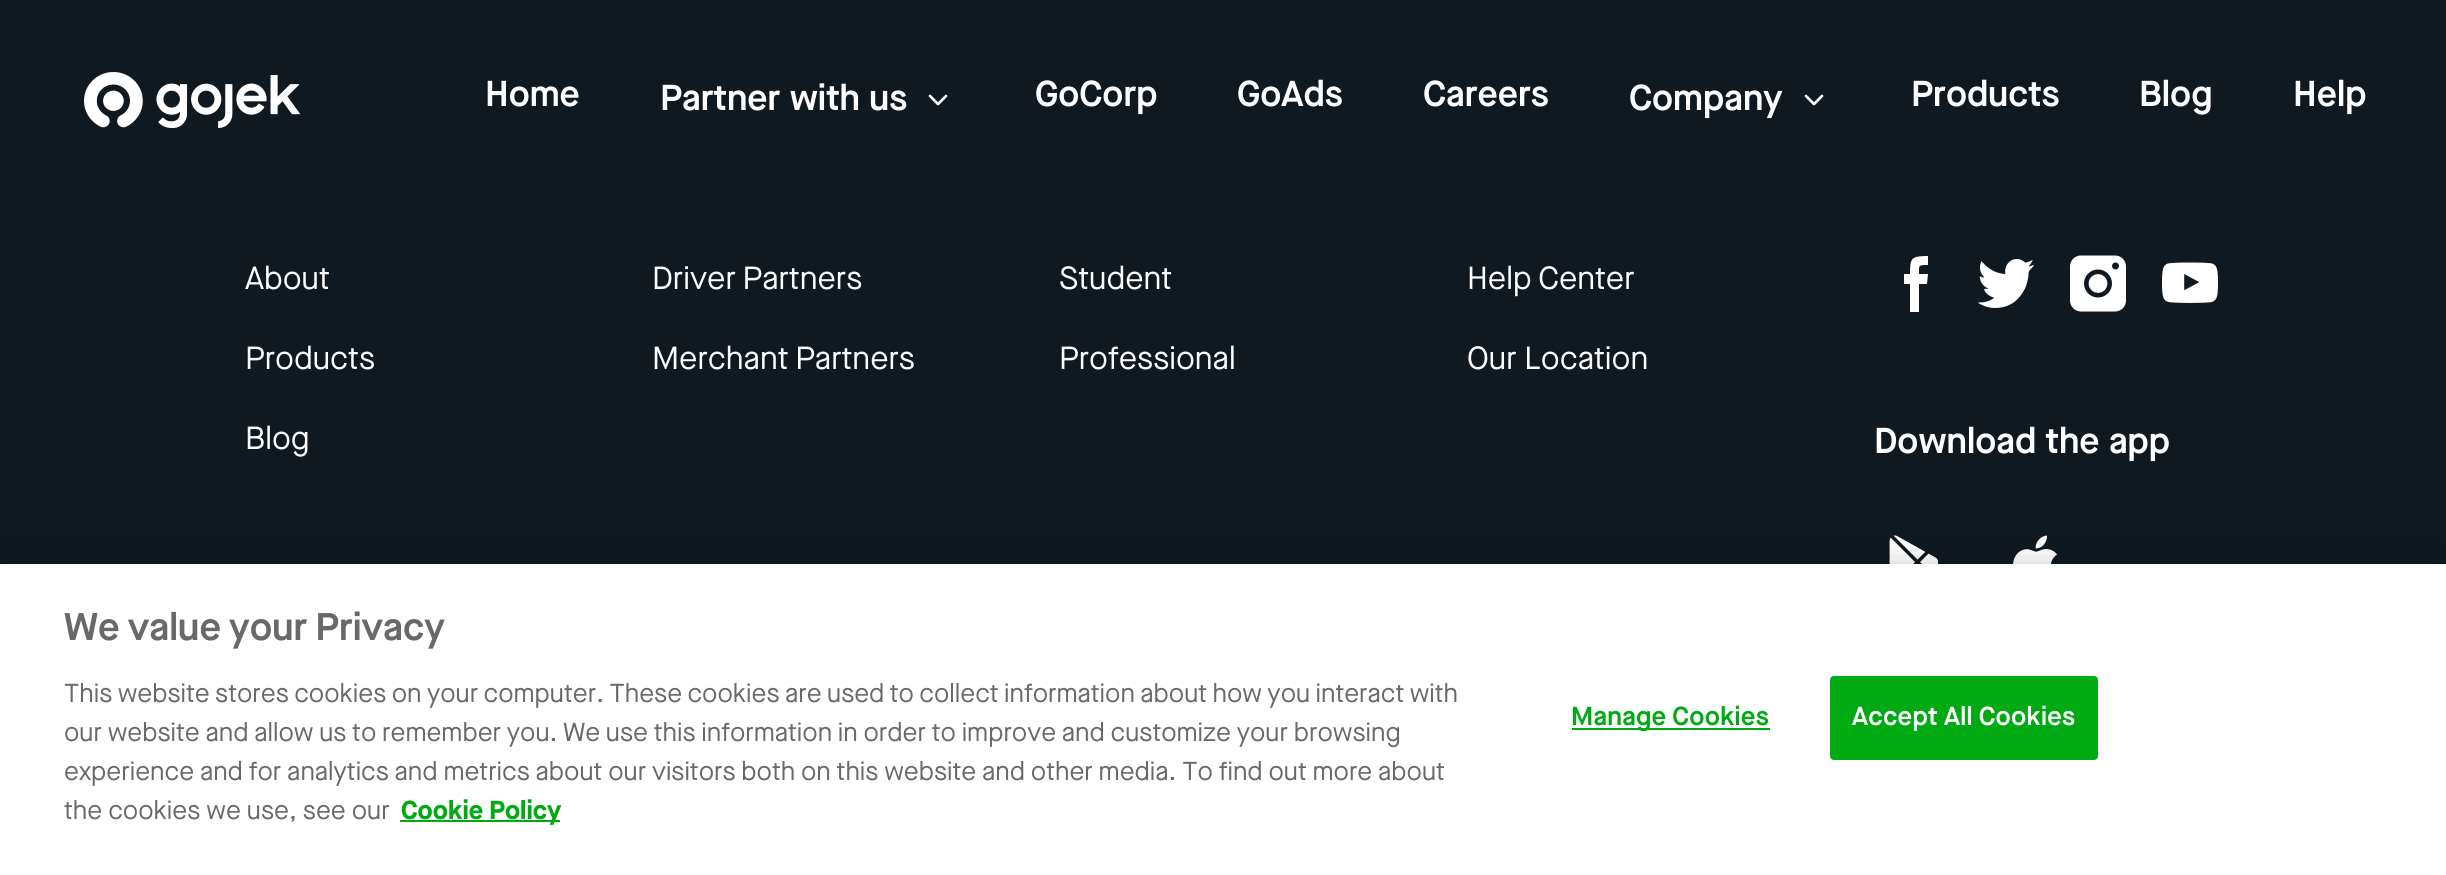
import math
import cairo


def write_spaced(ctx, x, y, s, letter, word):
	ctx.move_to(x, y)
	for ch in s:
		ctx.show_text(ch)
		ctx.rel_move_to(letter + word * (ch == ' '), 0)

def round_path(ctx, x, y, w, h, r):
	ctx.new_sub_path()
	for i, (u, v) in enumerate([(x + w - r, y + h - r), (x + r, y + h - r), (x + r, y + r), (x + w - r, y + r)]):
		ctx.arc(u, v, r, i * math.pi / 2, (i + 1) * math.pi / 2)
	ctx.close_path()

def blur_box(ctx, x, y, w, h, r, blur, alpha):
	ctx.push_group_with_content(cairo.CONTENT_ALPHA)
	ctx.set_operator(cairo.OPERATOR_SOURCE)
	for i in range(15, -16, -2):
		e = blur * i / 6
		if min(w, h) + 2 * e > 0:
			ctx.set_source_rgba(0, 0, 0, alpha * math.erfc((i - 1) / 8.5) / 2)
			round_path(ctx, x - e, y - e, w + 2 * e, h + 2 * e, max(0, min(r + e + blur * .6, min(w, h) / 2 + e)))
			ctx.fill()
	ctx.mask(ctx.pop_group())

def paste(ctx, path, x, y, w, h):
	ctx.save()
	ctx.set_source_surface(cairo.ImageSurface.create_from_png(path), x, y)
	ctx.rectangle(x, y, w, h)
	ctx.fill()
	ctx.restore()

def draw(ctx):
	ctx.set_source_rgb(0.063, 0.094, 0.125)
	ctx.paint()
	paste(ctx, 'media/1.png', 84, 72, 216, 56)
	ctx.select_font_face('Maison Neue SemiBold')
	ctx.set_font_size(36)
	ctx.set_source_rgb(1, 1, 1)
	ctx.move_to(485, 106)
	ctx.show_text('Home')
	ctx.move_to(660, 110)
	ctx.show_text('Partner with us')
	paste(ctx, 'media/2.png', 928, 94, 20, 12)
	for x, y, s in [
		(1035, 106, 'GoCorp'),
		(1237, 106, 'GoAds'),
		(1423, 106, 'Careers'),
		(1629, 110, 'Company'),
	]:
		ctx.move_to(x, y)
		ctx.show_text(s)
	paste(ctx, 'media/2.png', 1804, 94, 20, 12)
	for x, y, s in [
		(1911, 106, 'Products'),
		(2139, 106, 'Blog'),
		(2293, 106, 'Help'),
	]:
		ctx.move_to(x, y)
		ctx.show_text(s)
	ctx.select_font_face('Maison Neue')
	ctx.set_font_size(32)
	for x, y, s in [
		(245, 289, 'About'),
		(245, 369, 'Products'),
		(245, 449, 'Blog'),
	]:
		ctx.move_to(x, y)
		ctx.show_text(s)
	write_spaced(ctx, 652, 289, 'Driver Partners', 0, -2)
	write_spaced(ctx, 652, 369, 'Merchant Partners', 0, -2)
	ctx.move_to(1059, 289)
	ctx.show_text('Student')
	ctx.move_to(1059, 369)
	ctx.show_text('Professional')
	write_spaced(ctx, 1467, 289, 'Help Center', 0, -2)
	write_spaced(ctx, 1467, 369, 'Our Location', 0, -1)
	ctx.new_path()
	ctx.move_to(1910, 312)
	ctx.line_to(1910, 284)
	ctx.line_to(1904, 284)
	ctx.line_to(1904, 274)
	ctx.line_to(1910, 274)
	ctx.curve_to(1910, 258, 1911, 256, 1928, 256)
	ctx.line_to(1928, 265)
	ctx.curve_to(1918, 265, 1919, 265, 1919, 274)
	ctx.line_to(1928, 274)
	ctx.line_to(1927, 284)
	ctx.line_to(1919, 284)
	ctx.line_to(1919, 312)
	ctx.close_path()
	ctx.fill()
	paste(ctx, 'media/3.png', 1978, 259, 56, 49)
	paste(ctx, 'media/4.png', 2070, 255, 56, 57)
	paste(ctx, 'media/5.png', 2162, 262, 56, 41)
	ctx.select_font_face('Maison Neue SemiBold')
	ctx.set_font_size(36)
	ctx.move_to(1874, 453)
	ctx.show_text('Download the app')
	paste(ctx, 'media/6.png', 1889, 535, 50, 29)
	paste(ctx, 'media/7.png', 2013, 535, 44, 29)
	ctx.set_source_rgb(0, 0, 0)
	blur_box(ctx, 0, 564, 2446, 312, 0, 18, 0.2)
	ctx.set_source_rgb(1, 1, 1)
	ctx.rectangle(0, 564, 2446, 311)
	ctx.fill()
	ctx.select_font_face('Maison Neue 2 SemiBold')
	ctx.set_font_size(38.5)
	ctx.set_source_rgb(0.412, 0.412, 0.412)
	write_spaced(ctx, 64, 640, 'We value your Privacy', 0, -2)
	ctx.select_font_face('Maison Neue')
	ctx.set_font_size(26.02)
	write_spaced(ctx, 64, 702, 'This website stores cookies on your computer. These cookies are used to collect information about how you interact with', 0, -1.6)
	write_spaced(ctx, 64, 741, 'our website and allow us to remember you. We use this information in order to improve and customize your browsing', 0, -1.25)
	write_spaced(ctx, 64, 780, 'experience and for analytics and metrics about our visitors both on this website and other media. To find out more about', 0, -1.2)
	write_spaced(ctx, 64, 819, 'the cookies we use, see our', 0, -1)
	ctx.set_source_rgb(0, 0.667, 0.075)
	ctx.rectangle(400, 820, 160, 2)
	ctx.fill()
	ctx.select_font_face('Maison Neue', cairo.FONT_SLANT_NORMAL, cairo.FONT_WEIGHT_BOLD)
	write_spaced(ctx, 401, 819, 'Cookie Policy', 0, -1)
	ctx.rectangle(1572, 728, 198, 2)
	ctx.fill()
	ctx.select_font_face('Maison Neue 2 SemiBold')
	write_spaced(ctx, 1571, 725, 'Manage Cookies', 0.25, -1)
	round_path(ctx, 1831, 677, 266, 82, 3)
	ctx.fill_preserve()
	ctx.stroke()
	ctx.set_source_rgb(1, 1, 1)
	write_spaced(ctx, 1852, 725, 'Accept All Cookies', 0.25, -1)


surface = cairo.ImageSurface(cairo.FORMAT_RGB24, 2446, 875)
ctx = cairo.Context(surface)
options = cairo.FontOptions()
options.set_hint_metrics(cairo.HINT_METRICS_OFF)
options.set_hint_style(cairo.HINT_STYLE_NONE)
ctx.set_font_options(options)
ctx.set_miter_limit(4)
draw(ctx)
surface.write_to_png('image.png')
